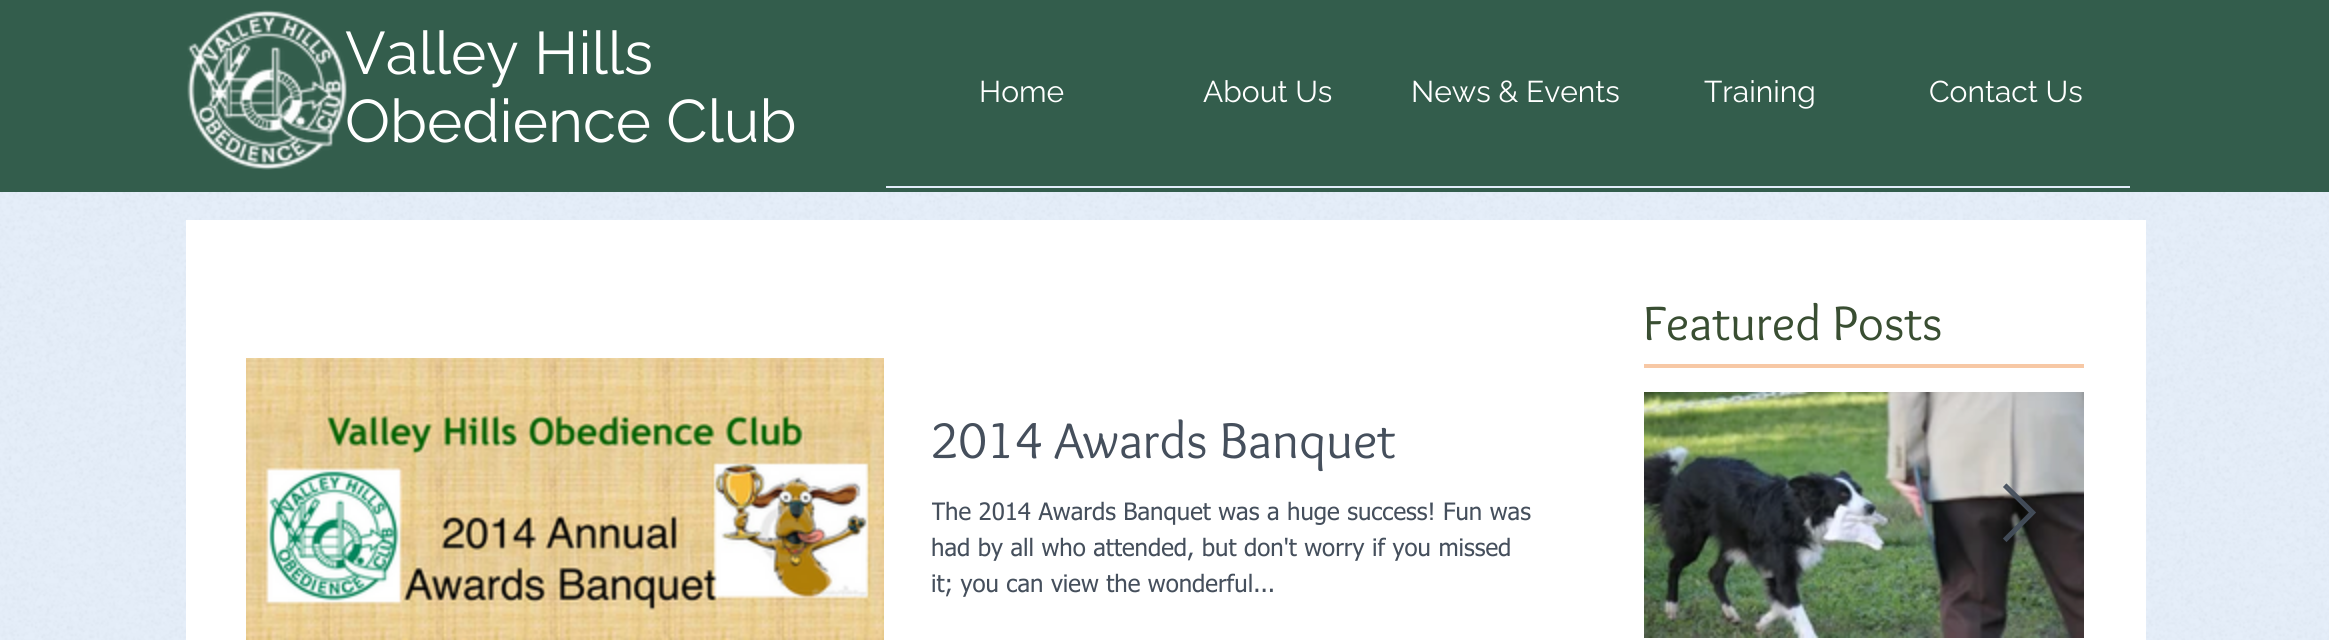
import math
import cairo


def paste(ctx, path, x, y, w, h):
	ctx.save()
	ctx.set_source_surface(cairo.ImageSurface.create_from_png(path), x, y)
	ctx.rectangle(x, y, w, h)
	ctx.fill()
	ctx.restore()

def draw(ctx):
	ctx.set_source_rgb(0.89, 0.929, 0.976)
	ctx.paint()
	ctx.set_source_rgb(0.2, 0.365, 0.298)
	ctx.rectangle(0, 0, 2329, 192)
	ctx.fill()
	paste(ctx, 'media/1.png', 187, 10, 160, 160)
	ctx.select_font_face('Raleway')
	ctx.set_font_size(60)
	ctx.set_source_rgb(1, 1, 1)
	ctx.move_to(345, 74)
	ctx.show_text('Valley Hills')
	ctx.move_to(345, 142)
	ctx.show_text('Obedience Club')
	ctx.set_font_size(30)
	for x, y, s in [
		(979, 102, 'Home'),
		(1203, 102, 'About Us'),
		(1411, 102, 'News & Events'),
		(1704, 102, 'Training'),
		(1929, 102, 'Contact Us'),
	]:
		ctx.move_to(x, y)
		ctx.show_text(s)
	ctx.set_source_rgb(0.89, 0.929, 0.976)
	ctx.rectangle(886, 186, 1244, 2)
	ctx.fill()
	paste(ctx, 'media/4.png', 0, 192, 2329, 448)
	ctx.set_source_rgb(1, 1, 1)
	ctx.rectangle(186, 220, 1960, 420)
	ctx.fill()
	ctx.select_font_face('Overlock')
	ctx.set_font_size(50)
	ctx.set_source_rgb(0.224, 0.306, 0.196)
	ctx.move_to(1643, 340)
	ctx.show_text('Featured Posts')
	ctx.set_source_rgb(0.965, 0.784, 0.647)
	ctx.rectangle(1644, 364, 440, 4)
	ctx.fill()
	paste(ctx, 'media/2.png', 246, 358, 638, 282)
	ctx.set_font_size(52)
	ctx.set_source_rgb(0.271, 0.31, 0.361)
	ctx.move_to(931, 458)
	ctx.show_text('2014 Awards Banquet')
	ctx.save()
	ctx.rectangle(932, 496, 606, 108)
	ctx.clip()
	ctx.select_font_face('tahoma')
	ctx.set_font_size(24)
	ctx.move_to(931, 520)
	ctx.show_text('The 2014 Awards Banquet was a huge success! Fun was')
	ctx.restore()
	ctx.select_font_face('tahoma')
	ctx.set_font_size(24)
	ctx.move_to(931, 556)
	ctx.show_text('had by all who attended, but don\'t worry if you missed')
	ctx.move_to(931, 592)
	ctx.show_text('it; you can view the wonderful...')
	paste(ctx, 'media/3.png', 1644, 392, 440, 246)
	ctx.set_source_rgba(0.271, 0.31, 0.361, 0.9)
	ctx.new_path()
	ctx.move_to(2004, 487)
	ctx.line_to(2006, 484)
	ctx.line_to(2035, 513)
	ctx.line_to(2006, 541)
	ctx.line_to(2004, 539)
	ctx.line_to(2030, 513)
	ctx.close_path()
	ctx.fill()
	ctx.new_path()
	ctx.move_to(2004, 487)
	ctx.line_to(2006.5, 484.5)
	ctx.line_to(2035, 512.5)
	ctx.line_to(2006.5, 541)
	ctx.line_to(2004, 538.5)
	ctx.line_to(2030, 512.5)
	ctx.close_path()
	ctx.set_line_width(1.6)
	ctx.stroke()


surface = cairo.ImageSurface(cairo.FORMAT_RGB24, 2329, 640)
ctx = cairo.Context(surface)
options = cairo.FontOptions()
options.set_hint_metrics(cairo.HINT_METRICS_OFF)
options.set_hint_style(cairo.HINT_STYLE_NONE)
ctx.set_font_options(options)
ctx.set_miter_limit(4)
draw(ctx)
surface.write_to_png('image.png')
